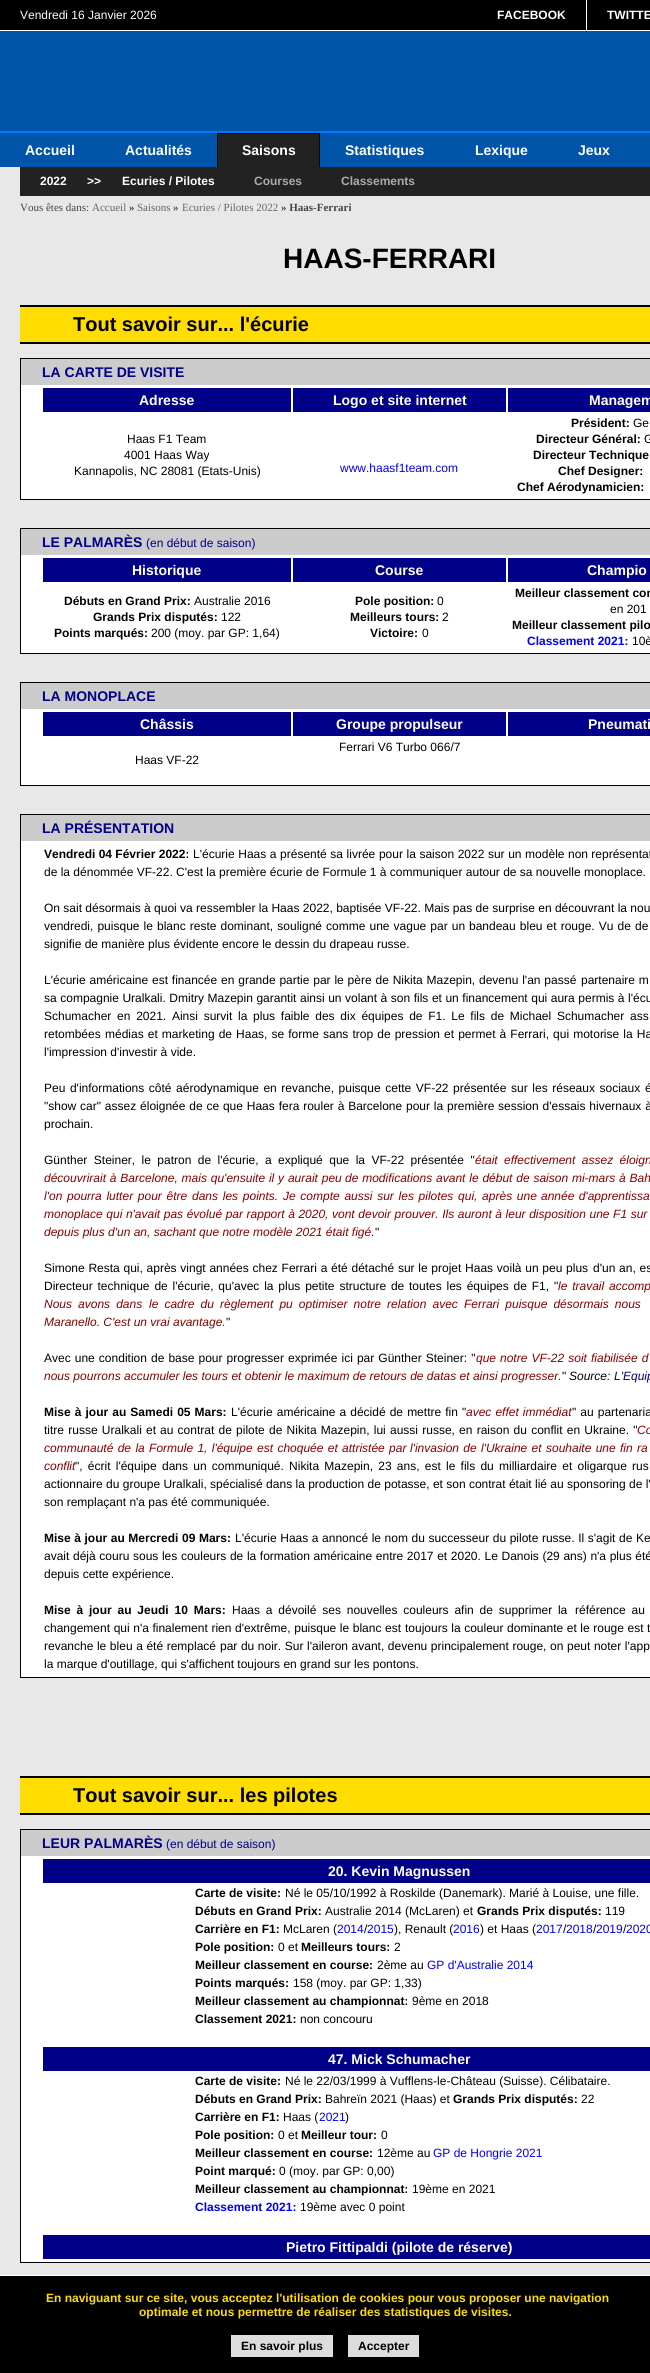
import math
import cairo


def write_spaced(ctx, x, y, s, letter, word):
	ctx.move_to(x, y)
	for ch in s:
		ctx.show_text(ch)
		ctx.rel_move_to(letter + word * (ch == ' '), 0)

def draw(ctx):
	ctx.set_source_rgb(0.91, 0.91, 0.91)
	ctx.paint()
	ctx.set_source_rgb(0, 0, 0)
	ctx.rectangle(0, 0, 650, 30)
	ctx.fill()
	ctx.set_source_rgb(1, 1, 1)
	ctx.rectangle(0, 30, 650, 1)
	ctx.fill()
	ctx.select_font_face('Liberation Sans')
	ctx.set_font_size(12)
	ctx.move_to(20, 19)
	ctx.show_text('Vendredi 16 Janvier 2026')
	ctx.select_font_face('Liberation Sans', cairo.FONT_SLANT_NORMAL, cairo.FONT_WEIGHT_BOLD)
	ctx.move_to(497, 19)
	ctx.show_text('FACEBOOK')
	ctx.rectangle(586, 0, 1, 30)
	ctx.fill()
	ctx.move_to(607, 19)
	ctx.show_text('TWITTE')
	ctx.set_source_rgb(0, 0.333, 0.667)
	ctx.rectangle(0, 31, 650, 100)
	ctx.fill()
	ctx.set_source_rgb(0, 0.467, 1)
	ctx.rectangle(0, 131, 650, 2)
	ctx.fill()
	ctx.set_source_rgb(0, 0.333, 0.667)
	ctx.rectangle(0, 133, 650, 34)
	ctx.fill()
	ctx.set_font_size(14)
	ctx.set_source_rgb(1, 1, 1)
	ctx.move_to(25, 155)
	ctx.show_text('Accueil')
	ctx.move_to(125, 155)
	ctx.show_text('Actualités')
	ctx.set_source_rgb(0.133, 0.133, 0.133)
	ctx.rectangle(218, 134, 101, 33)
	ctx.fill()
	ctx.set_source_rgb(0, 0, 0)
	ctx.rectangle(217, 133, 103, 1)
	ctx.rectangle(319, 133, 1, 34)
	ctx.rectangle(217, 133, 1, 34)
	ctx.fill()
	ctx.set_source_rgb(1, 1, 1)
	for x, y, s in [
		(242, 155, 'Saisons'),
		(345, 155, 'Statistiques'),
		(475, 155, 'Lexique'),
		(578, 155, 'Jeux'),
	]:
		ctx.move_to(x, y)
		ctx.show_text(s)
	ctx.set_source_rgb(0.133, 0.133, 0.133)
	ctx.rectangle(20, 167, 630, 29)
	ctx.fill()
	ctx.set_font_size(12)
	ctx.set_source_rgb(1, 1, 1)
	for x, y, s in [
		(40, 185, '2022'),
		(87, 185, '>>'),
		(122, 185, 'Ecuries / Pilotes'),
	]:
		ctx.move_to(x, y)
		ctx.show_text(s)
	ctx.set_source_rgb(0.667, 0.667, 0.667)
	ctx.move_to(254, 185)
	ctx.show_text('Courses')
	ctx.move_to(341, 185)
	ctx.show_text('Classements')
	ctx.select_font_face('Liberation Serif')
	ctx.set_font_size(11)
	ctx.set_source_rgb(0.267, 0.267, 0.267)
	ctx.move_to(20, 211)
	ctx.show_text('Vous êtes dans:')
	ctx.set_source_rgb(0.4, 0.4, 0.4)
	ctx.move_to(92, 211)
	ctx.show_text('Accueil')
	ctx.select_font_face('Liberation Serif', cairo.FONT_SLANT_NORMAL, cairo.FONT_WEIGHT_BOLD)
	ctx.set_source_rgb(0.267, 0.267, 0.267)
	ctx.move_to(129, 211)
	ctx.show_text('»')
	ctx.select_font_face('Liberation Serif')
	ctx.set_source_rgb(0.4, 0.4, 0.4)
	ctx.move_to(137, 211)
	ctx.show_text('Saisons')
	ctx.select_font_face('Liberation Serif', cairo.FONT_SLANT_NORMAL, cairo.FONT_WEIGHT_BOLD)
	ctx.set_source_rgb(0.267, 0.267, 0.267)
	ctx.move_to(173, 211)
	ctx.show_text('»')
	ctx.select_font_face('Liberation Serif')
	ctx.set_source_rgb(0.4, 0.4, 0.4)
	ctx.move_to(182, 211)
	ctx.show_text('Ecuries / Pilotes 2022')
	ctx.select_font_face('Liberation Serif', cairo.FONT_SLANT_NORMAL, cairo.FONT_WEIGHT_BOLD)
	ctx.set_source_rgb(0.267, 0.267, 0.267)
	ctx.move_to(281, 211)
	ctx.show_text('» Haas-Ferrari')
	ctx.select_font_face('Liberation Sans', cairo.FONT_SLANT_NORMAL, cairo.FONT_WEIGHT_BOLD)
	ctx.set_font_size(28)
	ctx.set_source_rgb(0, 0, 0)
	ctx.move_to(283, 268)
	ctx.show_text('HAAS-FERRARI')
	ctx.set_source_rgb(1, 0.867, 0)
	ctx.rectangle(20, 307, 630, 35)
	ctx.fill()
	ctx.set_source_rgb(0, 0, 0)
	ctx.rectangle(20, 305, 630, 2)
	ctx.rectangle(20, 342, 630, 2)
	ctx.fill()
	ctx.set_font_size(20)
	ctx.move_to(73, 331)
	ctx.show_text('Tout savoir sur... l\'écurie')
	ctx.set_source_rgb(1, 1, 1)
	ctx.rectangle(21, 385, 629, 114)
	ctx.fill()
	ctx.rectangle(20.5, 358.5, 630, 141)
	ctx.set_source_rgb(0, 0, 0)
	ctx.set_line_width(1)
	ctx.stroke()
	ctx.set_source_rgb(0.8, 0.8, 0.8)
	ctx.rectangle(21, 359, 629, 26)
	ctx.fill()
	ctx.set_font_size(14)
	ctx.set_source_rgb(0, 0, 0.533)
	ctx.move_to(42, 377)
	ctx.show_text('LA CARTE DE VISITE')
	ctx.rectangle(43, 388, 248, 24)
	ctx.fill()
	ctx.set_source_rgb(1, 1, 1)
	ctx.move_to(139, 405)
	ctx.show_text('Adresse')
	ctx.set_source_rgb(0, 0, 0.533)
	ctx.rectangle(293, 388, 213, 24)
	ctx.fill()
	ctx.set_source_rgb(1, 1, 1)
	ctx.move_to(333, 405)
	ctx.show_text('Logo et site internet')
	ctx.set_source_rgb(0, 0, 0.533)
	ctx.rectangle(508, 388, 142, 24)
	ctx.fill()
	ctx.set_source_rgb(1, 1, 1)
	ctx.move_to(589, 405)
	ctx.show_text('Managem')
	ctx.select_font_face('Liberation Sans')
	ctx.set_font_size(12)
	ctx.set_source_rgb(0, 0, 0)
	for x, y, s in [
		(127, 443, 'Haas F1 Team'),
		(124, 459, '4001 Haas Way'),
		(74, 475, 'Kannapolis, NC 28081 (Etats-Unis)'),
	]:
		ctx.move_to(x, y)
		ctx.show_text(s)
	ctx.set_source_rgb(0, 0, 1)
	ctx.move_to(340, 472)
	ctx.show_text('www.haasf1team.com')
	ctx.select_font_face('Liberation Sans', cairo.FONT_SLANT_NORMAL, cairo.FONT_WEIGHT_BOLD)
	ctx.set_source_rgb(0, 0, 0)
	ctx.move_to(571, 427)
	ctx.show_text('Président:')
	ctx.select_font_face('Liberation Sans')
	ctx.move_to(633, 427)
	ctx.show_text('Ge')
	ctx.select_font_face('Liberation Sans', cairo.FONT_SLANT_NORMAL, cairo.FONT_WEIGHT_BOLD)
	ctx.move_to(536, 443)
	ctx.show_text('Directeur Général:')
	ctx.select_font_face('Liberation Sans')
	ctx.move_to(644, 443)
	ctx.show_text('G')
	ctx.select_font_face('Liberation Sans', cairo.FONT_SLANT_NORMAL, cairo.FONT_WEIGHT_BOLD)
	for x, y, s in [
		(533, 459, 'Directeur Technique'),
		(558, 475, 'Chef Designer:'),
		(517, 491, 'Chef Aérodynamicien:'),
	]:
		ctx.move_to(x, y)
		ctx.show_text(s)
	ctx.set_source_rgb(1, 1, 1)
	ctx.rectangle(21, 555, 629, 98)
	ctx.fill()
	ctx.rectangle(20.5, 528.5, 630, 125)
	ctx.set_source_rgb(0, 0, 0)
	ctx.stroke()
	ctx.set_source_rgb(0.8, 0.8, 0.8)
	ctx.rectangle(21, 529, 629, 26)
	ctx.fill()
	ctx.set_font_size(14)
	ctx.set_source_rgb(0, 0, 0.533)
	ctx.move_to(42, 547)
	ctx.show_text('LE PALMARÈS')
	ctx.select_font_face('Liberation Sans')
	ctx.set_font_size(12)
	ctx.move_to(146, 547)
	ctx.show_text('(en début de saison)')
	ctx.rectangle(43, 558, 248, 24)
	ctx.fill()
	ctx.select_font_face('Liberation Sans', cairo.FONT_SLANT_NORMAL, cairo.FONT_WEIGHT_BOLD)
	ctx.set_font_size(14)
	ctx.set_source_rgb(1, 1, 1)
	ctx.move_to(132, 575)
	ctx.show_text('Historique')
	ctx.set_source_rgb(0, 0, 0.533)
	ctx.rectangle(293, 558, 213, 24)
	ctx.fill()
	ctx.set_source_rgb(1, 1, 1)
	ctx.move_to(375, 575)
	ctx.show_text('Course')
	ctx.set_source_rgb(0, 0, 0.533)
	ctx.rectangle(508, 558, 142, 24)
	ctx.fill()
	ctx.set_source_rgb(1, 1, 1)
	ctx.move_to(587, 575)
	ctx.show_text('Champio')
	ctx.set_font_size(12)
	ctx.set_source_rgb(0, 0, 0)
	ctx.move_to(64, 605)
	ctx.show_text('Débuts en Grand Prix:')
	ctx.select_font_face('Liberation Sans')
	ctx.move_to(194, 605)
	ctx.show_text('Australie 2016')
	ctx.select_font_face('Liberation Sans', cairo.FONT_SLANT_NORMAL, cairo.FONT_WEIGHT_BOLD)
	ctx.move_to(93, 621)
	ctx.show_text('Grands Prix disputés:')
	ctx.select_font_face('Liberation Sans')
	ctx.move_to(221, 621)
	ctx.show_text('122')
	ctx.select_font_face('Liberation Sans', cairo.FONT_SLANT_NORMAL, cairo.FONT_WEIGHT_BOLD)
	ctx.move_to(54, 637)
	ctx.show_text('Points marqués:')
	ctx.select_font_face('Liberation Sans')
	ctx.move_to(151, 637)
	ctx.show_text('200 (moy. par GP: 1,64)')
	ctx.select_font_face('Liberation Sans', cairo.FONT_SLANT_NORMAL, cairo.FONT_WEIGHT_BOLD)
	ctx.move_to(355, 605)
	ctx.show_text('Pole position:')
	ctx.select_font_face('Liberation Sans')
	ctx.move_to(437, 605)
	ctx.show_text('0')
	ctx.select_font_face('Liberation Sans', cairo.FONT_SLANT_NORMAL, cairo.FONT_WEIGHT_BOLD)
	ctx.move_to(350, 621)
	ctx.show_text('Meilleurs tours:')
	ctx.select_font_face('Liberation Sans')
	ctx.move_to(442, 621)
	ctx.show_text('2')
	ctx.select_font_face('Liberation Sans', cairo.FONT_SLANT_NORMAL, cairo.FONT_WEIGHT_BOLD)
	ctx.move_to(370, 637)
	ctx.show_text('Victoire:')
	ctx.select_font_face('Liberation Sans')
	ctx.move_to(422, 637)
	ctx.show_text('0')
	ctx.select_font_face('Liberation Sans', cairo.FONT_SLANT_NORMAL, cairo.FONT_WEIGHT_BOLD)
	ctx.move_to(515, 597)
	ctx.show_text('Meilleur classement con')
	ctx.select_font_face('Liberation Sans')
	ctx.move_to(610, 613)
	ctx.show_text('en 201')
	ctx.select_font_face('Liberation Sans', cairo.FONT_SLANT_NORMAL, cairo.FONT_WEIGHT_BOLD)
	ctx.move_to(512, 629)
	ctx.show_text('Meilleur classement pilo')
	ctx.set_source_rgb(0, 0, 1)
	ctx.move_to(527, 645)
	ctx.show_text('Classement 2021:')
	ctx.select_font_face('Liberation Sans')
	ctx.set_source_rgb(0, 0, 0)
	ctx.move_to(632, 645)
	ctx.show_text('10è')
	ctx.set_source_rgb(1, 1, 1)
	ctx.rectangle(21, 709, 629, 76)
	ctx.fill()
	ctx.rectangle(20.5, 682.5, 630, 103)
	ctx.set_source_rgb(0, 0, 0)
	ctx.stroke()
	ctx.set_source_rgb(0.8, 0.8, 0.8)
	ctx.rectangle(21, 683, 629, 26)
	ctx.fill()
	ctx.select_font_face('Liberation Sans', cairo.FONT_SLANT_NORMAL, cairo.FONT_WEIGHT_BOLD)
	ctx.set_font_size(14)
	ctx.set_source_rgb(0, 0, 0.533)
	ctx.move_to(42, 701)
	ctx.show_text('LA MONOPLACE')
	ctx.rectangle(43, 712, 248, 24)
	ctx.fill()
	ctx.set_source_rgb(1, 1, 1)
	ctx.move_to(140, 729)
	ctx.show_text('Châssis')
	ctx.set_source_rgb(0, 0, 0.533)
	ctx.rectangle(293, 712, 213, 24)
	ctx.fill()
	ctx.set_source_rgb(1, 1, 1)
	ctx.move_to(336, 729)
	ctx.show_text('Groupe propulseur')
	ctx.set_source_rgb(0, 0, 0.533)
	ctx.rectangle(508, 712, 142, 24)
	ctx.fill()
	ctx.set_source_rgb(1, 1, 1)
	ctx.move_to(588, 729)
	ctx.show_text('Pneumati')
	ctx.select_font_face('Liberation Sans')
	ctx.set_font_size(12)
	ctx.set_source_rgb(0, 0, 0)
	ctx.move_to(339, 751)
	ctx.show_text('Ferrari V6 Turbo 066/7')
	ctx.move_to(135, 764)
	ctx.show_text('Haas VF-22')
	ctx.set_source_rgb(1, 1, 1)
	ctx.rectangle(21, 841, 629, 836)
	ctx.fill()
	ctx.rectangle(20.5, 814.5, 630, 863)
	ctx.set_source_rgb(0, 0, 0)
	ctx.stroke()
	ctx.set_source_rgb(0.8, 0.8, 0.8)
	ctx.rectangle(21, 815, 629, 26)
	ctx.fill()
	ctx.select_font_face('Liberation Sans', cairo.FONT_SLANT_NORMAL, cairo.FONT_WEIGHT_BOLD)
	ctx.set_font_size(14)
	ctx.set_source_rgb(0, 0, 0.533)
	ctx.move_to(42, 833)
	ctx.show_text('LA PRÉSENTATION')
	ctx.set_font_size(12)
	ctx.set_source_rgb(0, 0, 0)
	ctx.move_to(44, 858)
	ctx.show_text('Vendredi 04 Février 2022:')
	ctx.select_font_face('Liberation Sans')
	write_spaced(ctx, 193, 858, 'L\'écurie Haas a présenté sa livrée pour la saison 2022 sur un modèle', 0, 0.25)
	for x, y, s in [
		(568, 858, 'non représentat'),
		(44, 876, 'de la dénommée VF-22. C\'est la première écurie de Formule 1 à communiquer autour de sa nouvelle monoplace.'),
		(44, 912, 'On sait désormais à quoi va ressembler la Haas 2022, baptisée VF-22. Mais pas de surprise en découvrant la nou'),
	]:
		ctx.move_to(x, y)
		ctx.show_text(s)
	write_spaced(ctx, 44, 930, 'vendredi, puisque le blanc reste dominant, souligné comme une vague par un', 0, 0.75)
	write_spaced(ctx, 469, 930, 'bandeau bleu et rouge. Vu de de', 0, 0.75)
	ctx.move_to(44, 948)
	ctx.show_text('signifie de manière plus évidente encore le dessin du drapeau russe.')
	write_spaced(ctx, 44, 984, 'L\'écurie américaine est financée en grande partie par le père de Nikita Mazepin, devenu l\'an passé', 0, 0.5)
	write_spaced(ctx, 581, 984, 'partenaire m', 0, 0.5)
	write_spaced(ctx, 44, 1002, 'sa compagnie Uralkali. Dmitry Mazepin garantit ainsi un volant à son fils et un financement qui aura permis à l\'écu', 0, 0.2)
	write_spaced(ctx, 44, 1020, 'Schumacher en 2021. Ainsi survit', 0, 2.4)
	write_spaced(ctx, 238, 1020, 'la plus faible des dix équipes de F1. Le fils de Michael Schumacher ass', 0, 2.4)
	ctx.move_to(44, 1038)
	ctx.show_text('retombées')
	write_spaced(ctx, 105, 1038, 'médias et marketing de Haas, se forme sans trop de pression et permet à Ferrari, qui motorise la Ha', 0, 0.75)
	ctx.move_to(44, 1056)
	ctx.show_text('l\'impression d\'investir à vide.')
	write_spaced(ctx, 44, 1092, 'Peu d\'informations côté aérodynamique en revanche, puisque cette VF-22 présentée sur les réseaux sociaux', 0, 1.25)
	write_spaced(ctx, 645, 1092, 'é', 0, 1)
	write_spaced(ctx, 44, 1110, '"show car" assez éloignée de ce que Haas fera rouler à Barcelone pour la première', 0, 0.5)
	write_spaced(ctx, 498, 1110, 'session d\'essais hivernaux à', 0, 0.5)
	ctx.move_to(44, 1128)
	ctx.show_text('prochain.')
	write_spaced(ctx, 44, 1164, 'Günther Steiner, le patron de l\'écurie, a expliqué que la VF-22 présentée "', 0, 3.1)
	ctx.select_font_face('Liberation Sans', cairo.FONT_SLANT_ITALIC)
	ctx.set_source_rgb(0.533, 0, 0)
	ctx.move_to(475, 1164)
	ctx.show_text('était')
	write_spaced(ctx, 504, 1164, 'effectivement assez éloign', 0, 3.1)
	write_spaced(ctx, 44, 1182, 'découvrirait à Barcelone, mais qu\'ensuite il y aurait peu', 0, 0.5)
	write_spaced(ctx, 345, 1182, 'de modifications avant le début de saison mi-mars à Bah', 0, 0.5)
	write_spaced(ctx, 44, 1200, 'l\'on pourra lutter pour être dans les points. Je compte aussi sur les pilotes qui, après une', 0, 1.4)
	write_spaced(ctx, 541, 1200, 'année d\'apprentissa', 0, 1)
	write_spaced(ctx, 44, 1218, 'monoplace qui n\'avait pas évolué par rapport à 2020, vont devoir prouver. Ils auront à leur disposition une F1 sur', 0, 0.25)
	ctx.move_to(44, 1236)
	ctx.show_text('depuis plus d\'un an, sachant que notre modèle 2021 était figé.')
	ctx.select_font_face('Liberation Sans')
	ctx.set_source_rgb(0, 0, 0)
	ctx.move_to(375, 1236)
	ctx.show_text('"')
	write_spaced(ctx, 44, 1272, 'Simone Resta qui, après vingt années chez Ferrari a été détaché sur le projet Haas voilà un peu plus', 0, 0.4)
	write_spaced(ctx, 593, 1272, 'd\'un an, es', 0, 0.4)
	write_spaced(ctx, 44, 1290, 'Directeur technique de l\'écurie, qu\'avec la plus petite structure de', 0, 1.5)
	write_spaced(ctx, 409, 1290, 'toutes les équipes de F1, "', 0, 1.5)
	ctx.select_font_face('Liberation Sans', cairo.FONT_SLANT_ITALIC)
	ctx.set_source_rgb(0.533, 0, 0)
	write_spaced(ctx, 558, 1290, 'le travail accomp', 0, 1.5)
	write_spaced(ctx, 44, 1308, 'Nous avons dans', 0, 2.75)
	write_spaced(ctx, 149, 1308, 'le cadre du règlement pu optimiser notre relation avec Ferrari puisque désormais nous', 0, 2.75)
	ctx.move_to(44, 1326)
	ctx.show_text('Maranello. C\'est un vrai avantage.')
	ctx.select_font_face('Liberation Sans')
	ctx.set_source_rgb(0, 0, 0)
	ctx.move_to(226, 1326)
	ctx.show_text('"')
	write_spaced(ctx, 44, 1362, 'Avec une condition de base pour progresser exprimée ici par Günther Steiner: "', 0, 0.75)
	ctx.select_font_face('Liberation Sans', cairo.FONT_SLANT_ITALIC)
	ctx.set_source_rgb(0.533, 0, 0)
	ctx.move_to(476, 1362)
	ctx.show_text('que')
	write_spaced(ctx, 500, 1362, 'notre VF-22 soit fiabilisée d', 0, 0.75)
	ctx.move_to(44, 1380)
	ctx.show_text('nous pourrons accumuler les tours et obtenir le maximum de retours de datas et ainsi progresser.')
	ctx.select_font_face('Liberation Sans')
	ctx.set_source_rgb(0, 0, 0)
	ctx.move_to(562, 1380)
	ctx.show_text('"')
	ctx.select_font_face('Liberation Sans', cairo.FONT_SLANT_ITALIC)
	ctx.move_to(569, 1380)
	ctx.show_text('Source:')
	ctx.set_source_rgb(0, 0, 0.533)
	ctx.move_to(614, 1380)
	ctx.show_text('L\'Equip')
	ctx.select_font_face('Liberation Sans', cairo.FONT_SLANT_NORMAL, cairo.FONT_WEIGHT_BOLD)
	ctx.set_source_rgb(0, 0, 0)
	write_spaced(ctx, 44, 1416, 'Mise à jour au Samedi 05 Mars:', 0, 0.75)
	ctx.select_font_face('Liberation Sans')
	write_spaced(ctx, 231, 1416, 'L\'écurie américaine a décidé de mettre fin "', 0, 0.75)
	ctx.select_font_face('Liberation Sans', cairo.FONT_SLANT_ITALIC)
	ctx.set_source_rgb(0.533, 0, 0)
	write_spaced(ctx, 466, 1416, 'avec effet immédiat', 0, 0.75)
	ctx.select_font_face('Liberation Sans')
	ctx.set_source_rgb(0, 0, 0)
	write_spaced(ctx, 572, 1416, '" au partenaria', 0, 0.75)
	write_spaced(ctx, 44, 1434, 'titre russe Uralkali et', 0, 0.9)
	write_spaced(ctx, 160, 1434, 'au contrat de pilote de Nikita Mazepin, lui aussi russe, en raison du conflit en Ukraine. "', 0, 0.9)
	ctx.select_font_face('Liberation Sans', cairo.FONT_SLANT_ITALIC)
	ctx.set_source_rgb(0.533, 0, 0)
	write_spaced(ctx, 637, 1434, 'Co', 0, 0.9)
	write_spaced(ctx, 44, 1452, 'communauté de la Formule 1, l\'équipe est choquée et attristée par', 0, 1)
	write_spaced(ctx, 410, 1452, 'l\'invasion de l\'Ukraine et souhaite une fin ra', 0, 1)
	ctx.move_to(44, 1470)
	ctx.show_text('conflit')
	ctx.select_font_face('Liberation Sans')
	ctx.set_source_rgb(0, 0, 0)
	write_spaced(ctx, 75, 1470, '", écrit l\'équipe', 0, 1.9)
	write_spaced(ctx, 162, 1470, 'dans un communiqué. Nikita Mazepin, 23 ans, est le fils du milliardaire et oligarque rus', 0, 1.9)
	ctx.move_to(44, 1488)
	ctx.show_text('actionnaire du groupe Uralkali, spécialisé dans la production de potasse, et son contrat était lié au sponsoring de l\'')
	ctx.move_to(44, 1506)
	ctx.show_text('son remplaçant n\'a pas été communiquée.')
	ctx.select_font_face('Liberation Sans', cairo.FONT_SLANT_NORMAL, cairo.FONT_WEIGHT_BOLD)
	write_spaced(ctx, 44, 1542, 'Mise à jour au Mercredi 09 Mars:', 0, 0.25)
	ctx.select_font_face('Liberation Sans')
	write_spaced(ctx, 235, 1542, 'L\'écurie Haas a annoncé le nom du successeur du pilote russe. Il s\'agit de Ke', 0, 0.25)
	write_spaced(ctx, 44, 1560, 'avait déjà couru sous les couleurs de la formation américaine entre 2017 et 2020. Le Danois (29 ans) n\'a plus été', 0, 0.3)
	ctx.move_to(44, 1578)
	ctx.show_text('depuis cette expérience.')
	ctx.select_font_face('Liberation Sans', cairo.FONT_SLANT_NORMAL, cairo.FONT_WEIGHT_BOLD)
	write_spaced(ctx, 44, 1614, 'Mise à jour au Jeudi 10 Mars:', 0, 2.5)
	ctx.select_font_face('Liberation Sans')
	write_spaced(ctx, 232, 1614, 'Haas a dévoilé ses nouvelles couleurs afin de supprimer la', 0, 2.5)
	write_spaced(ctx, 575, 1614, 'référence au', 0, 2.5)
	for x, y, s in [
		(44, 1632, 'changement qui n\'a finalement rien d\'extrême, puisque le blanc est'),
		(405, 1632, 'toujours la couleur dominante et le rouge est t'),
		(44, 1650, 'revanche le bleu a été remplacé'),
		(220, 1650, 'par du noir. Sur l\'aileron avant, devenu principalement rouge, on peut noter l\'app'),
	]:
		write_spaced(ctx, x, y, s, 0, 0.25)
	ctx.move_to(44, 1668)
	ctx.show_text('la marque d\'outillage, qui s\'affichent toujours en grand sur les pontons.')
	ctx.set_source_rgb(1, 0.867, 0)
	ctx.rectangle(20, 1778, 630, 35)
	ctx.fill()
	ctx.set_source_rgb(0, 0, 0)
	ctx.rectangle(20, 1776, 630, 2)
	ctx.rectangle(20, 1813, 630, 2)
	ctx.fill()
	ctx.select_font_face('Liberation Sans', cairo.FONT_SLANT_NORMAL, cairo.FONT_WEIGHT_BOLD)
	ctx.set_font_size(20)
	ctx.move_to(73, 1802)
	ctx.show_text('Tout savoir sur... les pilotes')
	ctx.set_source_rgb(1, 1, 1)
	ctx.rectangle(21, 1856, 629, 406)
	ctx.fill()
	ctx.rectangle(20.5, 1829.5, 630, 433)
	ctx.set_source_rgb(0, 0, 0)
	ctx.stroke()
	ctx.set_source_rgb(0.8, 0.8, 0.8)
	ctx.rectangle(21, 1830, 629, 26)
	ctx.fill()
	ctx.set_font_size(14)
	ctx.set_source_rgb(0, 0, 0.533)
	ctx.move_to(42, 1848)
	ctx.show_text('LEUR PALMARÈS')
	ctx.select_font_face('Liberation Sans')
	ctx.set_font_size(12)
	ctx.move_to(166, 1848)
	ctx.show_text('(en début de saison)')
	ctx.rectangle(43, 1859, 607, 24)
	ctx.fill()
	ctx.select_font_face('Liberation Sans', cairo.FONT_SLANT_NORMAL, cairo.FONT_WEIGHT_BOLD)
	ctx.set_font_size(14)
	ctx.set_source_rgb(1, 1, 1)
	ctx.move_to(328, 1876)
	ctx.show_text('20. Kevin Magnussen')
	ctx.set_font_size(12)
	ctx.set_source_rgb(0, 0, 0)
	ctx.move_to(195, 1897)
	ctx.show_text('Carte de visite:')
	ctx.select_font_face('Liberation Sans')
	ctx.move_to(285, 1897)
	ctx.show_text('Né le 05/10/1992 à Roskilde (Danemark). Marié à Louise, une fille.')
	ctx.select_font_face('Liberation Sans', cairo.FONT_SLANT_NORMAL, cairo.FONT_WEIGHT_BOLD)
	ctx.move_to(195, 1915)
	ctx.show_text('Débuts en Grand Prix:')
	ctx.select_font_face('Liberation Sans')
	ctx.move_to(325, 1915)
	ctx.show_text('Australie 2014 (McLaren) et')
	ctx.select_font_face('Liberation Sans', cairo.FONT_SLANT_NORMAL, cairo.FONT_WEIGHT_BOLD)
	ctx.move_to(477, 1915)
	ctx.show_text('Grands Prix disputés:')
	ctx.select_font_face('Liberation Sans')
	ctx.move_to(605, 1915)
	ctx.show_text('119')
	ctx.select_font_face('Liberation Sans', cairo.FONT_SLANT_NORMAL, cairo.FONT_WEIGHT_BOLD)
	ctx.move_to(195, 1933)
	ctx.show_text('Carrière en F1:')
	ctx.select_font_face('Liberation Sans')
	ctx.move_to(283, 1933)
	ctx.show_text('McLaren (')
	ctx.set_source_rgb(0, 0, 1)
	ctx.move_to(337, 1933)
	ctx.show_text('2014 2015')
	ctx.set_source_rgb(0, 0, 0)
	ctx.move_to(364, 1933)
	ctx.show_text('/')
	ctx.move_to(394, 1933)
	ctx.show_text('), Renault (')
	ctx.set_source_rgb(0, 0, 1)
	ctx.move_to(453, 1933)
	ctx.show_text('2016')
	ctx.set_source_rgb(0, 0, 0)
	ctx.move_to(480, 1933)
	ctx.show_text(') et Haas (')
	ctx.set_source_rgb(0, 0, 1)
	ctx.move_to(536, 1933)
	ctx.show_text('2017')
	ctx.set_source_rgb(0, 0, 0)
	ctx.move_to(563, 1933)
	ctx.show_text('/')
	ctx.set_source_rgb(0, 0, 1)
	ctx.move_to(566, 1933)
	ctx.show_text('2018')
	ctx.set_source_rgb(0, 0, 0)
	ctx.move_to(593, 1933)
	ctx.show_text('/')
	ctx.set_source_rgb(0, 0, 1)
	ctx.move_to(596, 1933)
	ctx.show_text('2019')
	ctx.set_source_rgb(0, 0, 0)
	ctx.move_to(623, 1933)
	ctx.show_text('/')
	ctx.set_source_rgb(0, 0, 1)
	ctx.move_to(626, 1933)
	ctx.show_text('2020')
	ctx.select_font_face('Liberation Sans', cairo.FONT_SLANT_NORMAL, cairo.FONT_WEIGHT_BOLD)
	ctx.set_source_rgb(0, 0, 0)
	ctx.move_to(195, 1951)
	ctx.show_text('Pole position:')
	ctx.select_font_face('Liberation Sans')
	ctx.move_to(278, 1951)
	ctx.show_text('0 et')
	ctx.select_font_face('Liberation Sans', cairo.FONT_SLANT_NORMAL, cairo.FONT_WEIGHT_BOLD)
	ctx.move_to(301, 1951)
	ctx.show_text('Meilleurs tours:')
	ctx.select_font_face('Liberation Sans')
	ctx.move_to(394, 1951)
	ctx.show_text('2')
	ctx.select_font_face('Liberation Sans', cairo.FONT_SLANT_NORMAL, cairo.FONT_WEIGHT_BOLD)
	ctx.move_to(195, 1969)
	ctx.show_text('Meilleur classement en course:')
	ctx.select_font_face('Liberation Sans')
	ctx.move_to(377, 1969)
	ctx.show_text('2ème au')
	ctx.set_source_rgb(0, 0, 1)
	ctx.move_to(427, 1969)
	ctx.show_text('GP d\'Australie 2014')
	ctx.select_font_face('Liberation Sans', cairo.FONT_SLANT_NORMAL, cairo.FONT_WEIGHT_BOLD)
	ctx.set_source_rgb(0, 0, 0)
	ctx.move_to(195, 1987)
	ctx.show_text('Points marqués:')
	ctx.select_font_face('Liberation Sans')
	ctx.move_to(293, 1987)
	ctx.show_text('158 (moy. par GP: 1,33)')
	ctx.select_font_face('Liberation Sans', cairo.FONT_SLANT_NORMAL, cairo.FONT_WEIGHT_BOLD)
	ctx.move_to(195, 2005)
	ctx.show_text('Meilleur classement au championnat:')
	ctx.select_font_face('Liberation Sans')
	ctx.move_to(412, 2005)
	ctx.show_text('9ème en 2018')
	ctx.select_font_face('Liberation Sans', cairo.FONT_SLANT_NORMAL, cairo.FONT_WEIGHT_BOLD)
	ctx.move_to(195, 2023)
	ctx.show_text('Classement 2021:')
	ctx.select_font_face('Liberation Sans')
	ctx.move_to(300, 2023)
	ctx.show_text('non concouru')
	ctx.set_source_rgb(0, 0, 0.533)
	ctx.rectangle(43, 2047, 607, 24)
	ctx.fill()
	ctx.select_font_face('Liberation Sans', cairo.FONT_SLANT_NORMAL, cairo.FONT_WEIGHT_BOLD)
	ctx.set_font_size(14)
	ctx.set_source_rgb(1, 1, 1)
	ctx.move_to(328, 2064)
	ctx.show_text('47. Mick Schumacher')
	ctx.set_font_size(12)
	ctx.set_source_rgb(0, 0, 0)
	ctx.move_to(195, 2085)
	ctx.show_text('Carte de visite:')
	ctx.select_font_face('Liberation Sans')
	ctx.move_to(285, 2085)
	ctx.show_text('Né le 22/03/1999 à Vufflens-le-Château (Suisse). Célibataire.')
	ctx.select_font_face('Liberation Sans', cairo.FONT_SLANT_NORMAL, cairo.FONT_WEIGHT_BOLD)
	ctx.move_to(195, 2103)
	ctx.show_text('Débuts en Grand Prix:')
	ctx.select_font_face('Liberation Sans')
	ctx.move_to(325, 2103)
	ctx.show_text('Bahreïn 2021 (Haas) et')
	ctx.select_font_face('Liberation Sans', cairo.FONT_SLANT_NORMAL, cairo.FONT_WEIGHT_BOLD)
	ctx.move_to(453, 2103)
	ctx.show_text('Grands Prix disputés:')
	ctx.select_font_face('Liberation Sans')
	ctx.move_to(581, 2103)
	ctx.show_text('22')
	ctx.select_font_face('Liberation Sans', cairo.FONT_SLANT_NORMAL, cairo.FONT_WEIGHT_BOLD)
	ctx.move_to(195, 2121)
	ctx.show_text('Carrière en F1:')
	ctx.select_font_face('Liberation Sans')
	ctx.move_to(283, 2121)
	ctx.show_text('Haas (')
	ctx.set_source_rgb(0, 0, 1)
	ctx.move_to(319, 2121)
	ctx.show_text('2021')
	ctx.set_source_rgb(0, 0, 0)
	ctx.move_to(345, 2121)
	ctx.show_text(')')
	ctx.select_font_face('Liberation Sans', cairo.FONT_SLANT_NORMAL, cairo.FONT_WEIGHT_BOLD)
	ctx.move_to(195, 2139)
	ctx.show_text('Pole position:')
	ctx.select_font_face('Liberation Sans')
	ctx.move_to(278, 2139)
	ctx.show_text('0 et')
	ctx.select_font_face('Liberation Sans', cairo.FONT_SLANT_NORMAL, cairo.FONT_WEIGHT_BOLD)
	ctx.move_to(301, 2139)
	ctx.show_text('Meilleur tour:')
	ctx.select_font_face('Liberation Sans')
	ctx.move_to(381, 2139)
	ctx.show_text('0')
	ctx.select_font_face('Liberation Sans', cairo.FONT_SLANT_NORMAL, cairo.FONT_WEIGHT_BOLD)
	ctx.move_to(195, 2157)
	ctx.show_text('Meilleur classement en course:')
	ctx.select_font_face('Liberation Sans')
	ctx.move_to(377, 2157)
	ctx.show_text('12ème au')
	ctx.set_source_rgb(0, 0, 1)
	ctx.move_to(433, 2157)
	ctx.show_text('GP de Hongrie 2021')
	ctx.select_font_face('Liberation Sans', cairo.FONT_SLANT_NORMAL, cairo.FONT_WEIGHT_BOLD)
	ctx.set_source_rgb(0, 0, 0)
	ctx.move_to(195, 2175)
	ctx.show_text('Point marqué:')
	ctx.select_font_face('Liberation Sans')
	ctx.move_to(279, 2175)
	ctx.show_text('0 (moy. par GP: 0,00)')
	ctx.select_font_face('Liberation Sans', cairo.FONT_SLANT_NORMAL, cairo.FONT_WEIGHT_BOLD)
	ctx.move_to(195, 2193)
	ctx.show_text('Meilleur classement au championnat:')
	ctx.select_font_face('Liberation Sans')
	ctx.move_to(412, 2193)
	ctx.show_text('19ème en 2021')
	ctx.select_font_face('Liberation Sans', cairo.FONT_SLANT_NORMAL, cairo.FONT_WEIGHT_BOLD)
	ctx.set_source_rgb(0, 0, 1)
	ctx.move_to(195, 2211)
	ctx.show_text('Classement 2021:')
	ctx.select_font_face('Liberation Sans')
	ctx.set_source_rgb(0, 0, 0)
	ctx.move_to(300, 2211)
	ctx.show_text('19ème avec 0 point')
	ctx.set_source_rgb(0, 0, 0.533)
	ctx.rectangle(43, 2235, 607, 24)
	ctx.fill()
	ctx.select_font_face('Liberation Sans', cairo.FONT_SLANT_NORMAL, cairo.FONT_WEIGHT_BOLD)
	ctx.set_font_size(14)
	ctx.set_source_rgb(1, 1, 1)
	ctx.move_to(286, 2252)
	ctx.show_text('Pietro Fittipaldi (pilote de réserve)')
	ctx.set_source_rgb(0, 0, 0)
	ctx.rectangle(0, 2276, 650, 97)
	ctx.fill()
	ctx.set_source_rgb(1, 1, 1)
	ctx.rectangle(0, 2275, 650, 1)
	ctx.fill()
	ctx.set_font_size(12)
	ctx.set_source_rgb(1, 0.867, 0)
	ctx.move_to(46, 2302)
	ctx.show_text('En naviguant sur ce site, vous acceptez l\'utilisation de cookies pour vous proposer une navigation')
	ctx.move_to(139, 2316)
	ctx.show_text('optimale et nous permettre de réaliser des statistiques de visites.')
	ctx.set_source_rgb(0.867, 0.867, 0.867)
	ctx.rectangle(231, 2335, 102, 22)
	ctx.fill()
	ctx.set_source_rgb(0, 0, 0)
	ctx.move_to(241, 2350)
	ctx.show_text('En savoir plus')
	ctx.set_source_rgb(0.867, 0.867, 0.867)
	ctx.rectangle(348, 2335, 71, 22)
	ctx.fill()
	ctx.set_source_rgb(0, 0, 0)
	ctx.move_to(358, 2350)
	ctx.show_text('Accepter')


surface = cairo.ImageSurface(cairo.FORMAT_RGB24, 650, 2373)
ctx = cairo.Context(surface)
options = cairo.FontOptions()
options.set_hint_metrics(cairo.HINT_METRICS_OFF)
options.set_hint_style(cairo.HINT_STYLE_NONE)
ctx.set_font_options(options)
ctx.set_miter_limit(4)
draw(ctx)
surface.write_to_png('image.png')
